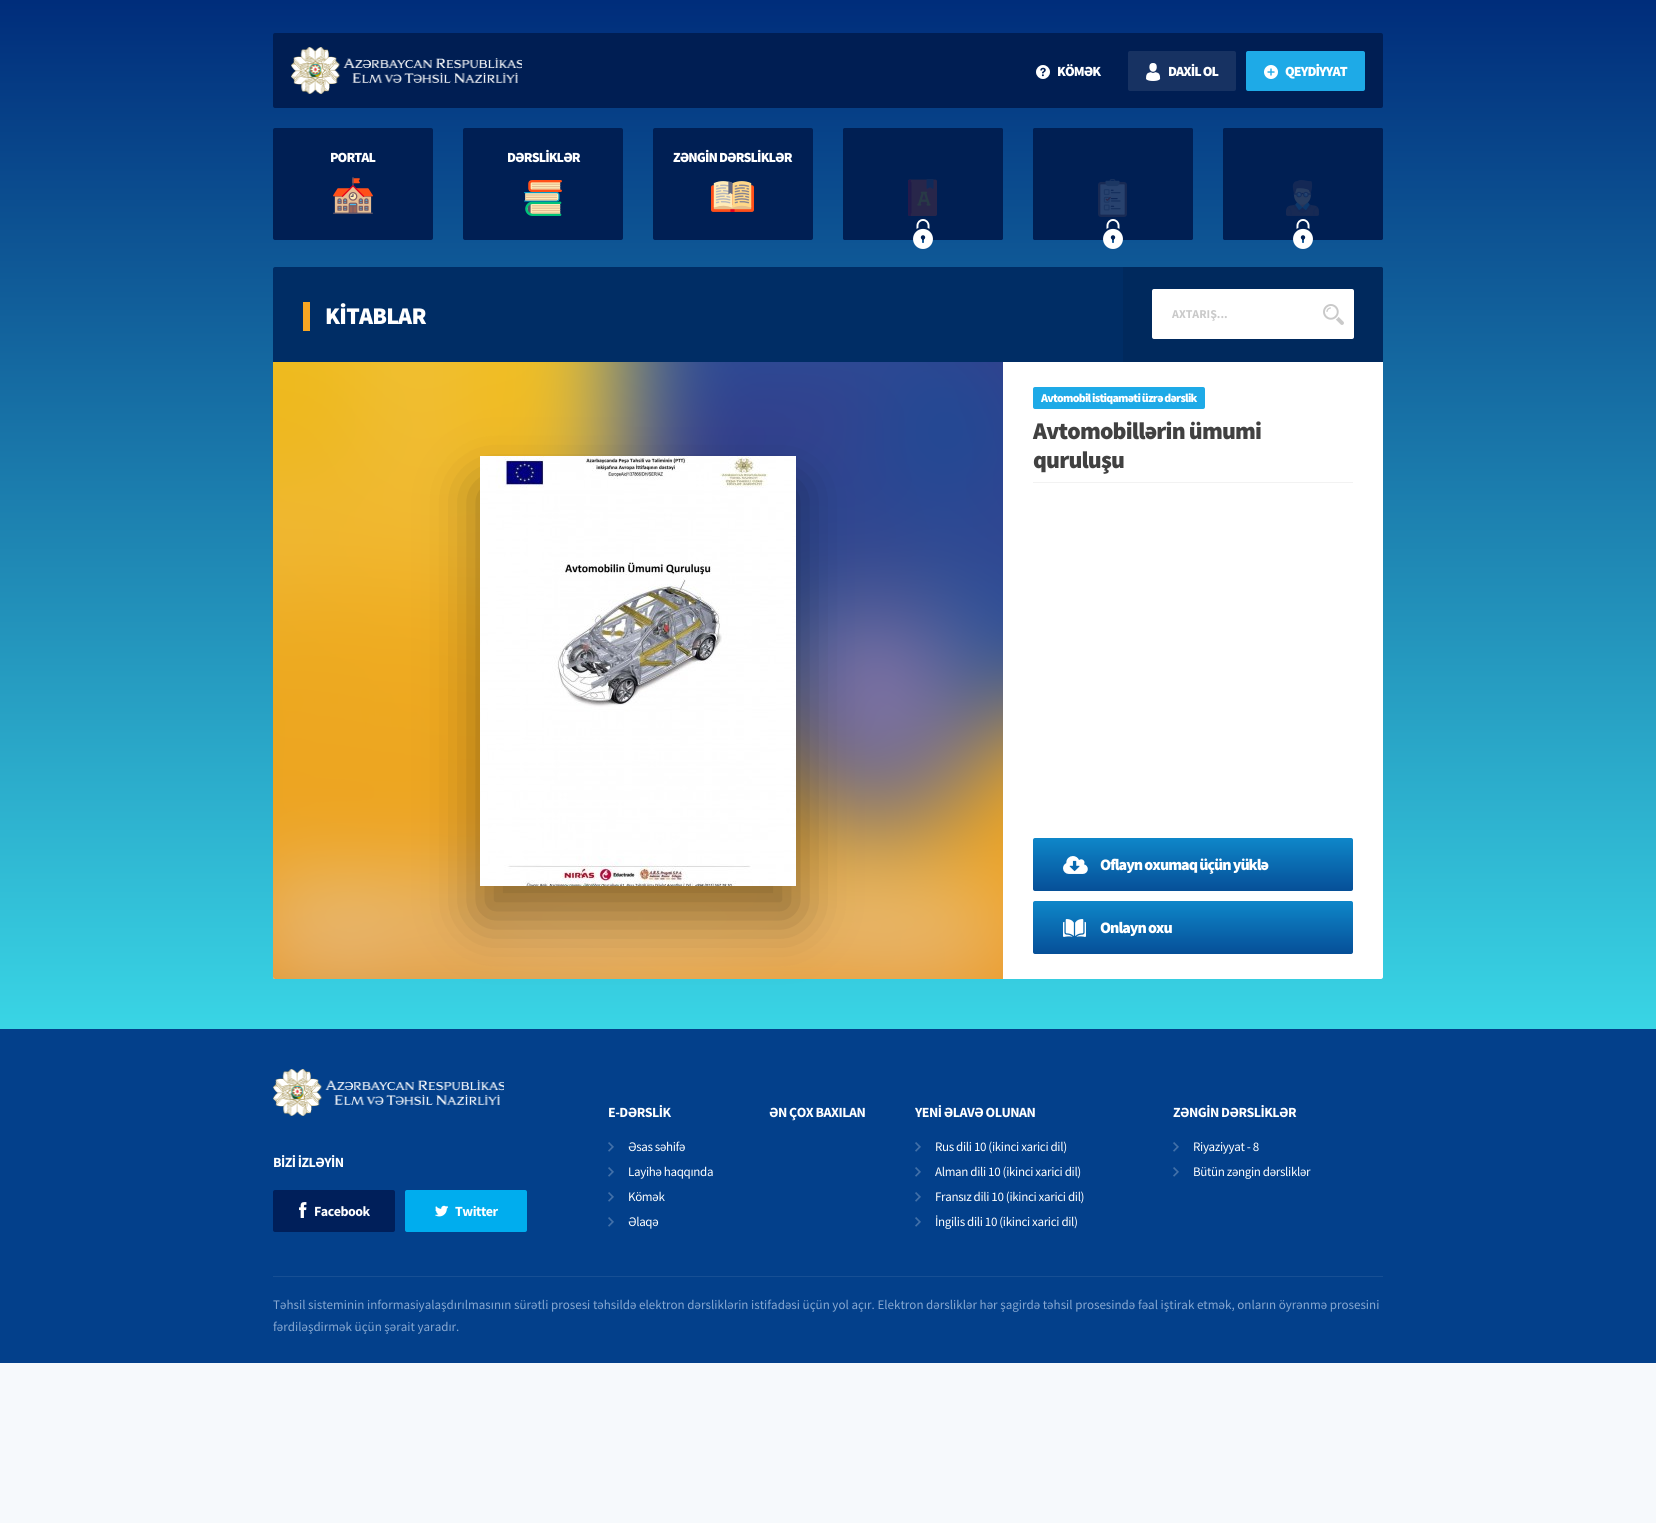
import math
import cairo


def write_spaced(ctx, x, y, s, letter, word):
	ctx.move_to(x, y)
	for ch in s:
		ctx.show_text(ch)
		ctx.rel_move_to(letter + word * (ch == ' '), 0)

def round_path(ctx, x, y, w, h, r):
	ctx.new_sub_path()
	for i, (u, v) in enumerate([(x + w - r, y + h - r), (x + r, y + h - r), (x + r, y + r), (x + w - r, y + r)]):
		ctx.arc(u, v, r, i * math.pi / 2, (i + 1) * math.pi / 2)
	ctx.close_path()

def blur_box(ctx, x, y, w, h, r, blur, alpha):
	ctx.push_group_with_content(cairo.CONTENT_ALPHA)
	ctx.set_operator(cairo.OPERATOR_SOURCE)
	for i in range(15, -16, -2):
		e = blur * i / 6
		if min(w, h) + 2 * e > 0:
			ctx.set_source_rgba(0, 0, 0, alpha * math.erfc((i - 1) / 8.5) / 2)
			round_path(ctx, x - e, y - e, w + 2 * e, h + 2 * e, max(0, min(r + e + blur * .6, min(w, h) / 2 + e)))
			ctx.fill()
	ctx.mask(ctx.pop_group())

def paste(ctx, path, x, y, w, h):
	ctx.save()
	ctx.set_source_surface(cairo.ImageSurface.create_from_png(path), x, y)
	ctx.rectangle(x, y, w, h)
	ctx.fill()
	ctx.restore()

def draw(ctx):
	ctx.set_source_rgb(0.961, 0.976, 0.988)
	ctx.paint()
	gradient = cairo.LinearGradient(0, 0, 0, 1029)
	gradient.add_color_stop_rgba(0, 0, 0.176, 0.482, 1)
	gradient.add_color_stop_rgba(1, 0.224, 0.835, 0.898, 1)
	ctx.set_source(gradient)
	ctx.rectangle(0, 0, 1656, 1029)
	ctx.fill()
	ctx.set_source_rgb(0, 0.118, 0.325)
	round_path(ctx, 273, 33, 1110, 75, 2)
	ctx.fill()
	paste(ctx, 'media/1.png', 291, 47, 231, 47)
	paste(ctx, 'media/2.png', 1036, 65, 14, 14)
	ctx.select_font_face('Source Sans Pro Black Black')
	ctx.set_font_size(14)
	ctx.set_source_rgb(1, 1, 1)
	write_spaced(ctx, 1057, 76, 'KÖMƏK', -0.9, 0)
	ctx.set_source_rgb(0.09, 0.196, 0.384)
	round_path(ctx, 1128, 51, 108, 40, 2)
	ctx.fill()
	paste(ctx, 'media/3.png', 1146, 63, 15, 18)
	ctx.set_source_rgb(1, 1, 1)
	write_spaced(ctx, 1168, 76, 'DAXİL OL', -0.9, 0)
	ctx.set_source_rgb(0.118, 0.667, 0.906)
	round_path(ctx, 1246, 51, 119, 40, 2)
	ctx.fill()
	paste(ctx, 'media/4.png', 1264, 65, 14, 14)
	ctx.set_source_rgb(1, 1, 1)
	write_spaced(ctx, 1285, 76, 'QEYDİYYAT', -0.9, 0)
	ctx.set_source_rgb(0, 0.122, 0.329)
	round_path(ctx, 273, 128, 160, 112, 2)
	ctx.fill()
	ctx.set_source_rgb(1, 1, 1)
	write_spaced(ctx, 330, 162, 'PORTAL', -0.9, 0)
	paste(ctx, 'media/5.png', 333, 177, 40, 37)
	ctx.set_source_rgb(0, 0.122, 0.329)
	round_path(ctx, 463, 128, 160, 112, 2)
	ctx.fill()
	ctx.set_source_rgb(1, 1, 1)
	write_spaced(ctx, 507, 162, 'DƏRSLİKLƏR', -0.9, 0)
	paste(ctx, 'media/6.png', 524, 180, 38, 36)
	ctx.set_source_rgb(0, 0.122, 0.329)
	round_path(ctx, 653, 128, 160, 112, 2)
	ctx.fill()
	ctx.set_source_rgb(1, 1, 1)
	write_spaced(ctx, 673, 162, 'ZƏNGİN DƏRSLİKLƏR', -0.9, 0)
	paste(ctx, 'media/7.png', 711, 181, 43, 31)
	ctx.set_source_rgb(0, 0.122, 0.329)
	round_path(ctx, 843, 128, 160, 112, 2)
	ctx.fill()
	paste(ctx, 'media/8.png', 908, 179, 29, 37)
	ctx.set_source_rgba(0, 0.122, 0.329, 0.84)
	round_path(ctx, 843, 128, 160, 112, 2)
	ctx.fill()
	paste(ctx, 'media/9.png', 913, 219, 20, 30)
	ctx.set_source_rgb(0, 0.122, 0.329)
	round_path(ctx, 1033, 128, 160, 112, 2)
	ctx.fill()
	paste(ctx, 'media/10.png', 1098, 179, 29, 38)
	ctx.set_source_rgba(0, 0.122, 0.329, 0.84)
	round_path(ctx, 1033, 128, 160, 112, 2)
	ctx.fill()
	paste(ctx, 'media/9.png', 1103, 219, 20, 30)
	ctx.set_source_rgb(0, 0.122, 0.329)
	round_path(ctx, 1223, 128, 160, 112, 2)
	ctx.fill()
	paste(ctx, 'media/11.png', 1286, 180, 33, 36)
	ctx.set_source_rgba(0, 0.122, 0.329, 0.84)
	round_path(ctx, 1223, 128, 160, 112, 2)
	ctx.fill()
	paste(ctx, 'media/9.png', 1293, 219, 20, 30)
	ctx.set_source_rgb(0, 0.176, 0.396)
	ctx.new_path()
	ctx.move_to(275, 267)
	ctx.line_to(1381, 267)
	ctx.curve_to(1382, 267, 1383, 268, 1383, 269)
	ctx.line_to(1383, 362)
	ctx.line_to(273, 362)
	ctx.line_to(273, 269)
	ctx.curve_to(273, 268, 274, 267, 275, 267)
	ctx.close_path()
	ctx.fill()
	ctx.set_source_rgb(0.965, 0.651, 0.137)
	ctx.rectangle(303, 302, 7, 29)
	ctx.fill()
	ctx.set_font_size(24)
	ctx.set_source_rgb(1, 1, 1)
	write_spaced(ctx, 325, 324, 'KİTABLAR', -0.75, 0)
	ctx.set_source_rgb(0, 0.161, 0.365)
	ctx.new_path()
	ctx.move_to(1123, 267)
	ctx.line_to(1381, 267)
	ctx.curve_to(1382, 267, 1383, 268, 1383, 269)
	ctx.line_to(1383, 362)
	ctx.line_to(1123, 362)
	ctx.close_path()
	ctx.fill()
	ctx.set_source_rgb(1, 1, 1)
	round_path(ctx, 1152, 289, 202, 50, 2)
	ctx.fill()
	ctx.select_font_face('Source Sans Pro', cairo.FONT_SLANT_NORMAL, cairo.FONT_WEIGHT_BOLD)
	ctx.set_font_size(12)
	ctx.set_source_rgb(0.792, 0.792, 0.792)
	ctx.move_to(1172, 318)
	ctx.show_text('AXTARIŞ...')
	paste(ctx, 'media/12.png', 1323, 304, 21, 21)
	ctx.set_source_rgb(1, 1, 1)
	ctx.new_path()
	ctx.move_to(273, 362)
	ctx.line_to(1383, 362)
	ctx.line_to(1383, 977)
	ctx.curve_to(1383, 978, 1382, 979, 1381, 979)
	ctx.line_to(275, 979)
	ctx.curve_to(274, 979, 273, 978, 273, 977)
	ctx.close_path()
	ctx.fill()
	paste(ctx, 'media/13.png', 273, 362, 730, 617)
	ctx.set_source_rgb(0, 0, 0)
	blur_box(ctx, 480, 486, 316, 430, 0, 27.5, 0.4)
	paste(ctx, 'media/14.png', 480, 456, 316, 430)
	ctx.set_source_rgb(0.118, 0.667, 0.906)
	round_path(ctx, 1033, 387, 172, 22, 2)
	ctx.fill()
	ctx.select_font_face('Source Sans Pro Black Black')
	ctx.set_source_rgb(1, 1, 1)
	write_spaced(ctx, 1041, 402, 'Avtomobil istiqaməti üzrə dərslik', -0.75, 0)
	ctx.set_source_rgb(0.949, 0.949, 0.949)
	ctx.rectangle(1033, 482, 320, 1)
	ctx.fill()
	ctx.set_font_size(24)
	ctx.set_source_rgb(0.255, 0.255, 0.255)
	write_spaced(ctx, 1033, 439, 'Avtomobillərin ümumi', -0.8, 0)
	write_spaced(ctx, 1033, 468, 'quruluşu', -0.8, 0)
	gradient = cairo.LinearGradient(1033, 838, 1033, 891)
	gradient.add_color_stop_rgba(0, 0.055, 0.529, 0.788, 1)
	gradient.add_color_stop_rgba(1, 0.024, 0.31, 0.596, 1)
	ctx.set_source(gradient)
	round_path(ctx, 1033, 838, 320, 53, 2)
	ctx.fill()
	paste(ctx, 'media/15.png', 1063, 856, 25, 18)
	ctx.set_font_size(16)
	ctx.set_source_rgb(1, 1, 1)
	write_spaced(ctx, 1100, 870, 'Oflayn oxumaq üçün yüklə', -1, 0)
	gradient = cairo.LinearGradient(1033, 901, 1033, 954)
	gradient.add_color_stop_rgba(0, 0.055, 0.529, 0.788, 1)
	gradient.add_color_stop_rgba(1, 0.024, 0.31, 0.596, 1)
	ctx.set_source(gradient)
	round_path(ctx, 1033, 901, 320, 53, 2)
	ctx.fill()
	paste(ctx, 'media/16.png', 1063, 919, 23, 18)
	ctx.set_source_rgb(1, 1, 1)
	write_spaced(ctx, 1100, 933, 'Onlayn oxu', -1, 0)
	ctx.set_source_rgb(0.012, 0.251, 0.545)
	ctx.rectangle(0, 1029, 1656, 334)
	ctx.fill()
	paste(ctx, 'media/17.png', 273, 1069, 231, 47)
	ctx.select_font_face('Source Sans Pro', cairo.FONT_SLANT_NORMAL, cairo.FONT_WEIGHT_BOLD)
	ctx.set_font_size(14)
	ctx.set_source_rgb(1, 1, 1)
	write_spaced(ctx, 273, 1167, 'BİZİ İZLƏYİN', -0.5, 0)
	ctx.set_source_rgb(0, 0.122, 0.353)
	round_path(ctx, 273, 1190, 122, 42, 2)
	ctx.fill()
	paste(ctx, 'media/18.png', 299, 1202, 8, 16)
	ctx.set_source_rgb(1, 1, 1)
	write_spaced(ctx, 314, 1216, 'Facebook', -0.5, 0)
	ctx.set_source_rgb(0, 0.678, 0.933)
	round_path(ctx, 405, 1190, 122, 42, 2)
	ctx.fill()
	paste(ctx, 'media/19.png', 435, 1205, 14, 12)
	ctx.set_source_rgb(1, 1, 1)
	write_spaced(ctx, 455, 1216, 'Twitter', -0.5, 0)
	write_spaced(ctx, 608, 1117, 'E-DƏRSLİK', -0.5, 0)
	paste(ctx, 'media/20.png', 608, 1142, 6, 10)
	ctx.select_font_face('Source Sans Pro')
	ctx.set_font_size(13)
	write_spaced(ctx, 628, 1151, 'Əsas səhifə', -0.35, 0)
	paste(ctx, 'media/20.png', 608, 1167, 6, 10)
	write_spaced(ctx, 628, 1176, 'Layihə haqqında', -0.35, 0)
	paste(ctx, 'media/20.png', 608, 1192, 6, 10)
	write_spaced(ctx, 628, 1201, 'Kömək', -0.35, 0)
	paste(ctx, 'media/20.png', 608, 1217, 6, 10)
	write_spaced(ctx, 628, 1226, 'Əlaqə', -0.35, 0)
	ctx.select_font_face('Source Sans Pro', cairo.FONT_SLANT_NORMAL, cairo.FONT_WEIGHT_BOLD)
	ctx.set_font_size(14)
	write_spaced(ctx, 769, 1117, 'ƏN ÇOX BAXILAN', -0.5, 0)
	write_spaced(ctx, 915, 1117, 'YENİ ƏLAVƏ OLUNAN', -0.5, 0)
	paste(ctx, 'media/20.png', 915, 1142, 6, 10)
	ctx.select_font_face('Source Sans Pro')
	ctx.set_font_size(13)
	write_spaced(ctx, 935, 1151, 'Rus dili 10 (ikinci xarici dil)', -0.35, 0)
	paste(ctx, 'media/20.png', 915, 1167, 6, 10)
	write_spaced(ctx, 935, 1176, 'Alman dili 10 (ikinci xarici dil)', -0.35, 0)
	paste(ctx, 'media/20.png', 915, 1192, 6, 10)
	write_spaced(ctx, 935, 1201, 'Fransız dili 10 (ikinci xarici dil)', -0.35, 0)
	paste(ctx, 'media/20.png', 915, 1217, 6, 10)
	write_spaced(ctx, 935, 1226, 'İngilis dili 10 (ikinci xarici dil)', -0.35, 0)
	ctx.select_font_face('Source Sans Pro', cairo.FONT_SLANT_NORMAL, cairo.FONT_WEIGHT_BOLD)
	ctx.set_font_size(14)
	write_spaced(ctx, 1173, 1117, 'ZƏNGİN DƏRSLİKLƏR', -0.5, 0)
	paste(ctx, 'media/20.png', 1173, 1142, 6, 10)
	ctx.select_font_face('Source Sans Pro')
	ctx.set_font_size(13)
	write_spaced(ctx, 1193, 1151, 'Riyaziyyat - 8', -0.35, 0)
	paste(ctx, 'media/20.png', 1173, 1167, 6, 10)
	write_spaced(ctx, 1193, 1176, 'Bütün zəngin dərsliklər', -0.35, 0)
	ctx.set_source_rgb(0.09, 0.31, 0.58)
	ctx.rectangle(273, 1276, 1110, 1)
	ctx.fill()
	ctx.set_source_rgb(0.529, 0.659, 0.82)
	ctx.move_to(273, 1309)
	ctx.show_text('Təhsil sisteminin informasiyalaşdırılmasının sürətli prosesi təhsildə elektron dərsliklərin istifadəsi üçün yol açır. Elektron dərsliklər hər şagirdə təhsil prosesində fəal iştirak etmək, onların öyrənmə prosesini')
	ctx.move_to(273, 1331)
	ctx.show_text('fərdiləşdirmək üçün şərait yaradır.')


surface = cairo.ImageSurface(cairo.FORMAT_RGB24, 1656, 1523)
ctx = cairo.Context(surface)
options = cairo.FontOptions()
options.set_hint_metrics(cairo.HINT_METRICS_OFF)
options.set_hint_style(cairo.HINT_STYLE_NONE)
ctx.set_font_options(options)
ctx.set_miter_limit(4)
draw(ctx)
surface.write_to_png('image.png')
